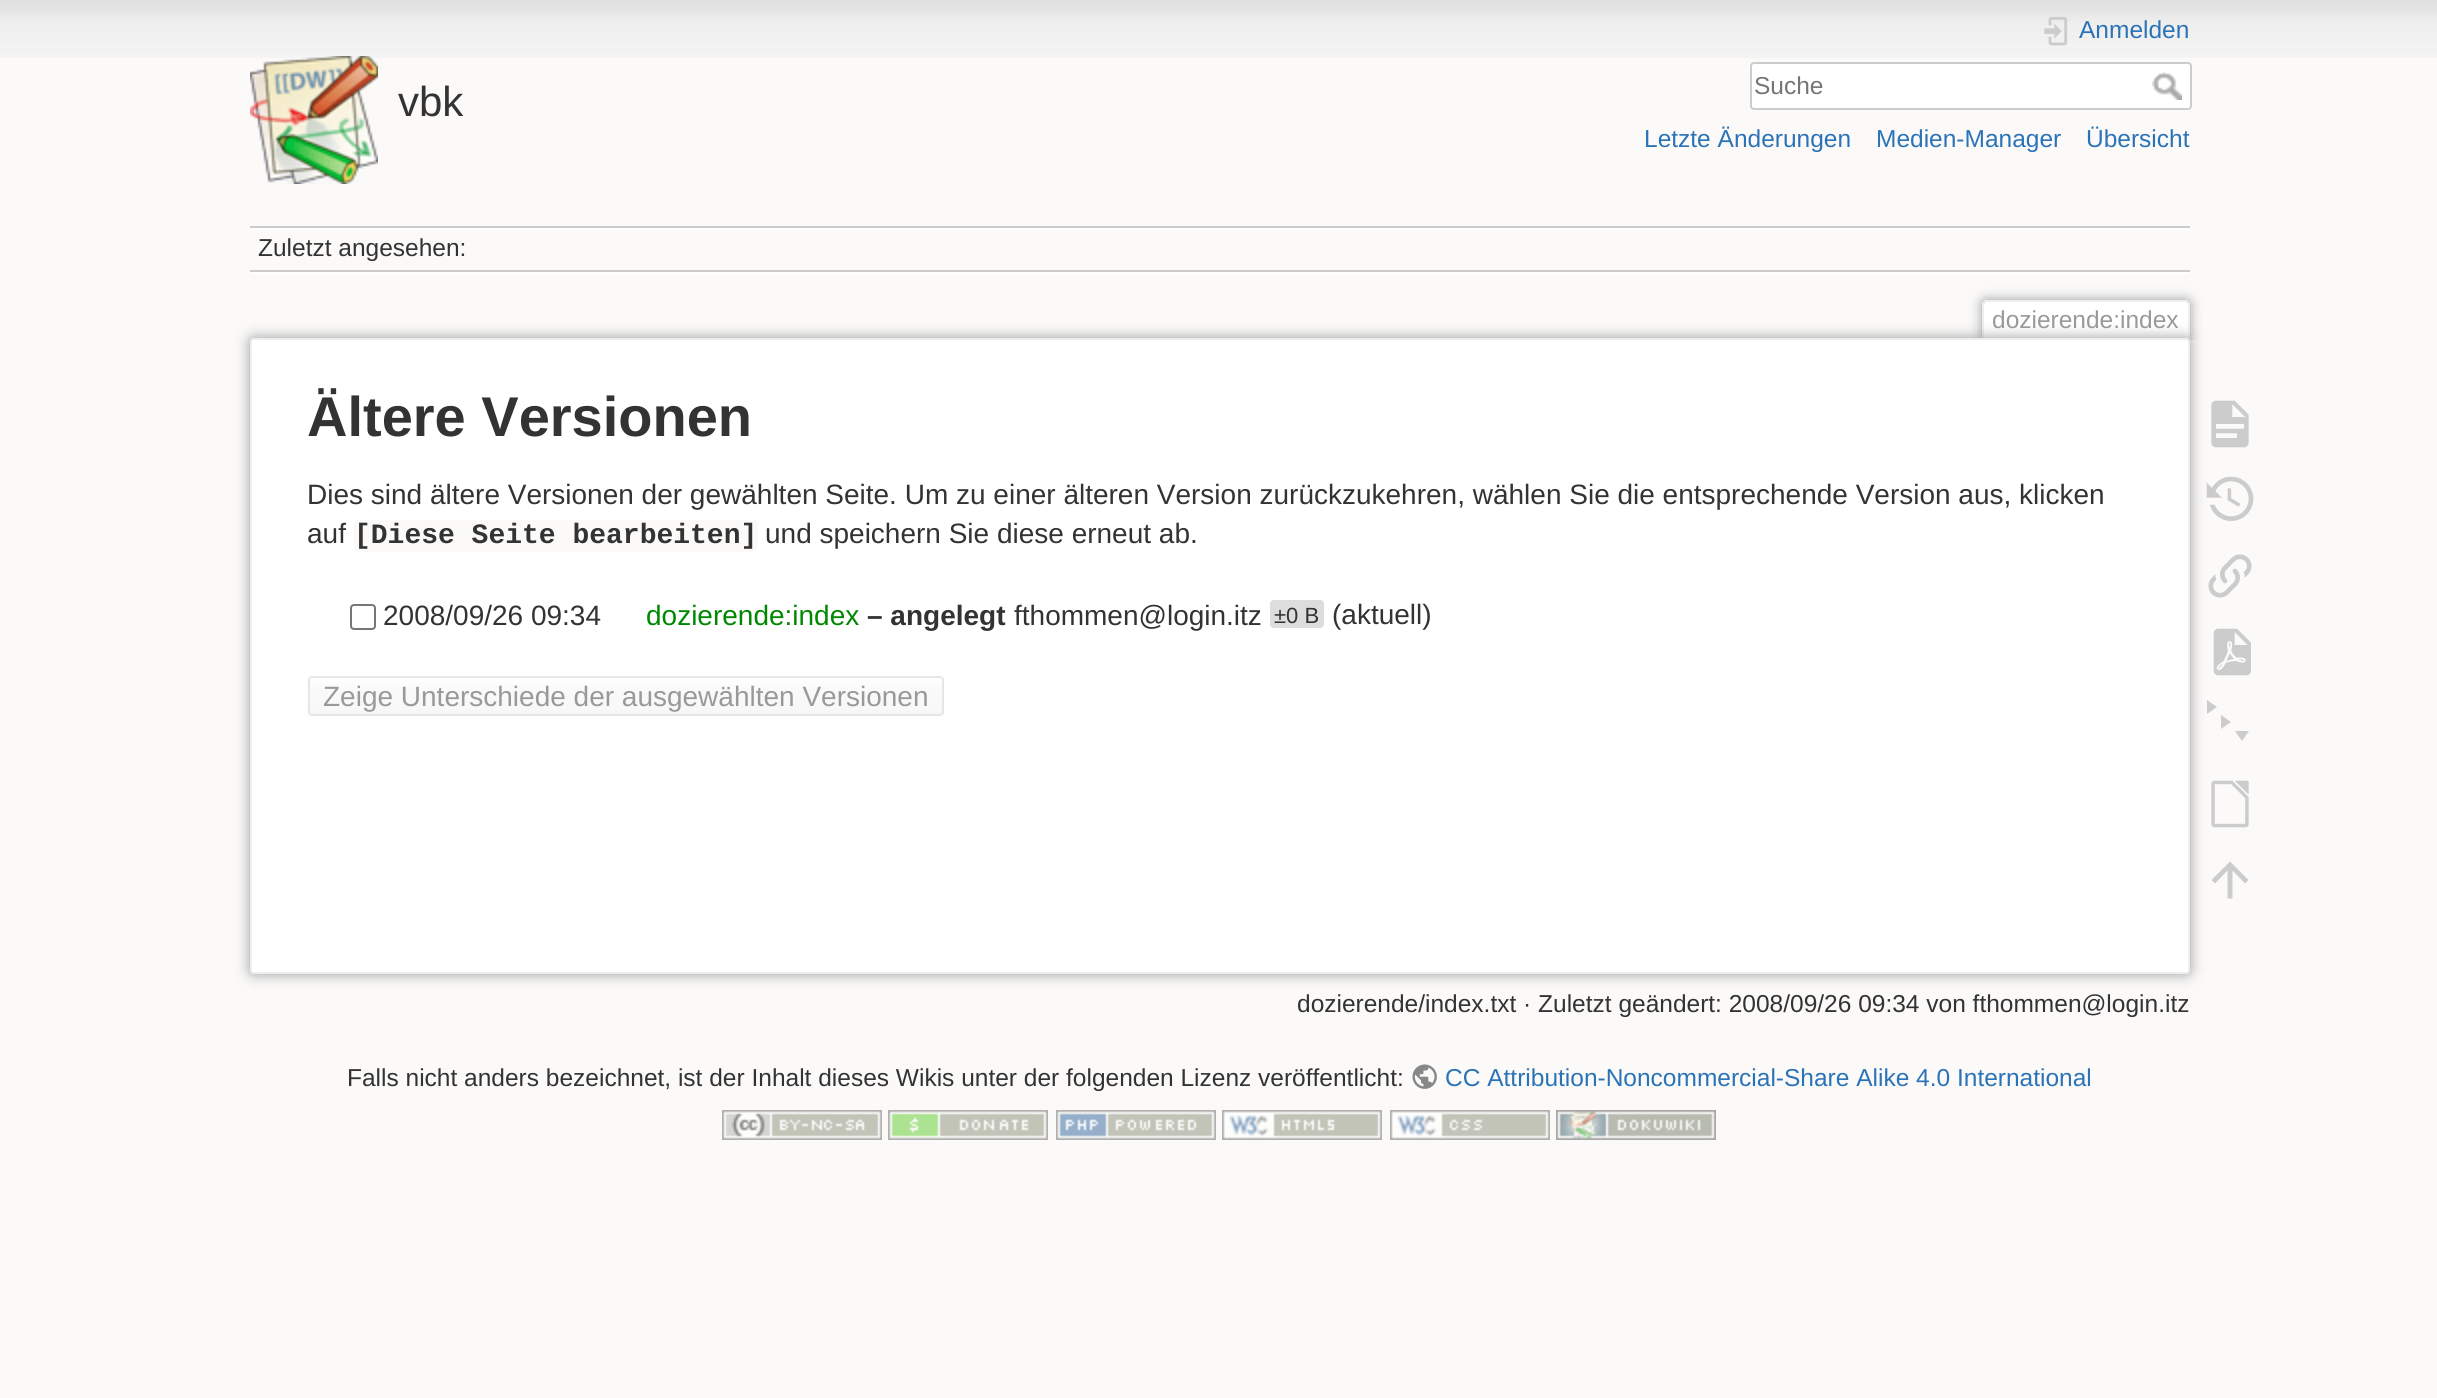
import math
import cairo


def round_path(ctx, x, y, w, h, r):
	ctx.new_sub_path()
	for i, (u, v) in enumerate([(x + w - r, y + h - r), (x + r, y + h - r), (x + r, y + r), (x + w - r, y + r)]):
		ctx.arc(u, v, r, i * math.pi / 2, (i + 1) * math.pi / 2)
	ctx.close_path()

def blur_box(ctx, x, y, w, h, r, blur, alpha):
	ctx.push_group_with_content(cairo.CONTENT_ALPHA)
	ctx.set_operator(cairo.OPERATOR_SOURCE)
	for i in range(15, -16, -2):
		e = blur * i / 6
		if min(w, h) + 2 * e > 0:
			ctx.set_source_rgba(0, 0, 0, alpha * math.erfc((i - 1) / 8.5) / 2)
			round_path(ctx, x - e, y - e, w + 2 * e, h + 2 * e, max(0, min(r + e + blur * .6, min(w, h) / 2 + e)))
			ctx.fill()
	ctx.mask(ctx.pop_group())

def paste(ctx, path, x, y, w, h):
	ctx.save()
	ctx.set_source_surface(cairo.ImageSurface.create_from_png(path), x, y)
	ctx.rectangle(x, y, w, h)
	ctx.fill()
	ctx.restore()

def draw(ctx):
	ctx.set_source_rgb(0.984, 0.98, 0.976)
	ctx.paint()
	paste(ctx, 'media/1.png', 0, 0, 2437, 58)
	paste(ctx, 'media/2.png', 250, 56, 128, 128)
	ctx.select_font_face('Liberation Sans')
	ctx.set_font_size(42)
	ctx.set_source_rgb(0.2, 0.2, 0.2)
	ctx.move_to(398, 116)
	ctx.show_text('vbk')
	paste(ctx, 'media/3.png', 2044, 16, 24, 30)
	ctx.set_font_size(24.5)
	ctx.set_source_rgb(0.169, 0.451, 0.718)
	ctx.move_to(2079, 38)
	ctx.show_text('Anmelden')
	ctx.set_source_rgb(1, 1, 1)
	round_path(ctx, 1751, 63, 440, 46, 3)
	ctx.fill_preserve()
	ctx.set_source_rgb(0.8, 0.8, 0.8)
	ctx.stroke()
	ctx.set_source_rgb(0.459, 0.459, 0.459)
	ctx.move_to(1754, 94)
	ctx.show_text('Suche')
	paste(ctx, 'media/4.png', 2152, 72, 30, 28)
	ctx.set_source_rgb(0.169, 0.451, 0.718)
	for x, y, s in [
		(1644, 147, 'Letzte Änderungen'),
		(1876, 147, 'Medien-Manager'),
		(2086, 147, 'Übersicht'),
	]:
		ctx.move_to(x, y)
		ctx.show_text(s)
	ctx.set_source_rgb(0.8, 0.8, 0.8)
	ctx.rectangle(250, 226, 1940, 2)
	ctx.fill()
	ctx.set_source_rgb(1, 1, 1)
	ctx.rectangle(250, 272, 1940, 2)
	ctx.rectangle(250, 228, 1940, 2)
	ctx.fill()
	ctx.set_source_rgb(0.8, 0.8, 0.8)
	ctx.rectangle(250, 270, 1940, 2)
	ctx.fill()
	ctx.set_source_rgb(0.2, 0.2, 0.2)
	ctx.move_to(258, 256)
	ctx.show_text('Zuletzt angesehen:')
	ctx.save()
	ctx.rectangle(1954, 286, 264, 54)
	ctx.clip()
	ctx.set_source_rgb(0.6, 0.6, 0.6)
	blur_box(ctx, 1982, 300, 208, 40, 4, 6, 1)
	ctx.restore()
	ctx.set_source_rgb(1, 1, 1)
	ctx.new_path()
	ctx.move_to(1986, 302)
	ctx.line_to(2186, 302)
	ctx.curve_to(2187, 302, 2188, 303, 2188, 304)
	ctx.line_to(2188, 340)
	ctx.line_to(1984, 340)
	ctx.line_to(1984, 304)
	ctx.curve_to(1984, 303, 1985, 302, 1986, 302)
	ctx.close_path()
	ctx.fill()
	ctx.set_source_rgb(0.933, 0.933, 0.933)
	ctx.rectangle(1984, 300, 204, 2)
	ctx.rectangle(2188, 302, 2, 38)
	ctx.rectangle(1982, 302, 2, 38)
	ctx.fill()
	ctx.set_source_rgb(0.6, 0.6, 0.6)
	ctx.move_to(1992, 328)
	ctx.show_text('dozierende:index')
	ctx.set_source_rgb(0.6, 0.6, 0.6)
	blur_box(ctx, 250, 338, 1940, 636, 4, 7, 1)
	ctx.set_source_rgb(1, 1, 1)
	round_path(ctx, 251, 339, 1938, 634, 3)
	ctx.fill_preserve()
	ctx.set_source_rgb(0.933, 0.933, 0.933)
	ctx.stroke()
	ctx.select_font_face('Liberation Sans', cairo.FONT_SLANT_NORMAL, cairo.FONT_WEIGHT_BOLD)
	ctx.set_font_size(56)
	ctx.set_source_rgb(0.2, 0.2, 0.2)
	ctx.move_to(307, 436)
	ctx.show_text('Ältere Versionen')
	ctx.select_font_face('Liberation Sans')
	ctx.set_font_size(28)
	ctx.move_to(307, 504)
	ctx.show_text('Dies sind ältere Versionen der gewählten Seite. Um zu einer älteren Version zurückzukehren, wählen Sie die entsprechende Version aus, klicken')
	ctx.move_to(307, 543)
	ctx.show_text('auf')
	ctx.set_source_rgb(0.984, 0.98, 0.976)
	round_path(ctx, 354, 520, 404, 32, 4)
	ctx.fill()
	ctx.select_font_face('Liberation Mono', cairo.FONT_SLANT_NORMAL, cairo.FONT_WEIGHT_BOLD)
	ctx.set_source_rgb(0.2, 0.2, 0.2)
	ctx.move_to(354, 543)
	ctx.show_text('[Diese Seite bearbeiten]')
	ctx.select_font_face('Liberation Sans')
	ctx.move_to(765, 543)
	ctx.show_text('und speichern Sie diese erneut ab.')
	round_path(ctx, 351, 605, 24, 24, 3)
	ctx.set_source_rgb(0.463, 0.463, 0.463)
	ctx.stroke()
	ctx.set_source_rgb(0.2, 0.2, 0.2)
	ctx.move_to(383, 625)
	ctx.show_text('2008/09/26 09:34')
	ctx.set_source_rgb(0, 0.533, 0)
	ctx.move_to(646, 625)
	ctx.show_text('dozierende:index')
	ctx.select_font_face('Liberation Sans', cairo.FONT_SLANT_NORMAL, cairo.FONT_WEIGHT_BOLD)
	ctx.set_source_rgb(0.2, 0.2, 0.2)
	ctx.move_to(867, 625)
	ctx.show_text('– angelegt')
	ctx.select_font_face('Liberation Sans')
	ctx.move_to(1014, 625)
	ctx.show_text('fthommen@login.itz')
	ctx.set_source_rgb(0.867, 0.867, 0.867)
	round_path(ctx, 1270, 600, 54, 28, 4)
	ctx.fill()
	ctx.set_font_size(22)
	ctx.set_source_rgb(0.2, 0.2, 0.2)
	ctx.move_to(1274, 623)
	ctx.show_text('±0 B')
	ctx.set_font_size(28)
	ctx.move_to(1332, 624)
	ctx.show_text('(aktuell)')
	ctx.save()
	round_path(ctx, 308, 676, 636, 40, 4)
	ctx.clip()
	gradient = cairo.LinearGradient(626, 678, 626, 714)
	gradient.add_color_stop_rgba(0, 1, 1, 1, 1)
	gradient.add_color_stop_rgba(0.3, 0.98, 0.98, 0.98, 1)
	gradient.add_color_stop_rgba(0.99, 0.969, 0.969, 0.969, 1)
	gradient.add_color_stop_rgba(0.99, 0.902, 0.902, 0.902, 1)
	ctx.set_source(gradient)
	ctx.rectangle(308, 678, 636, 36)
	ctx.fill()
	ctx.restore()
	round_path(ctx, 309, 677, 634, 38, 3)
	ctx.set_source_rgb(0.902, 0.902, 0.902)
	ctx.stroke()
	ctx.set_source_rgb(0.6, 0.6, 0.6)
	ctx.move_to(323, 706)
	ctx.show_text('Zeige Unterschiede der ausgewählten Versionen')
	ctx.set_font_size(24.5)
	ctx.set_source_rgb(0.2, 0.2, 0.2)
	ctx.move_to(1297, 1012)
	ctx.show_text('dozierende/index.txt · Zuletzt geändert: 2008/09/26 09:34 von fthommen@login.itz')
	paste(ctx, 'media/5.png', 2211, 400, 38, 48)
	paste(ctx, 'media/6.png', 2206, 476, 48, 45)
	paste(ctx, 'media/7.png', 2208, 554, 44, 44)
	paste(ctx, 'media/8.png', 2213, 628, 38, 48)
	ctx.set_source_rgb(0.8, 0.8, 0.8)
	ctx.new_path()
	ctx.move_to(2207, 700)
	ctx.line_to(2217, 707)
	ctx.line_to(2207, 714)
	ctx.close_path()
	ctx.move_to(2221, 715)
	ctx.line_to(2231, 722)
	ctx.line_to(2221, 729)
	ctx.close_path()
	ctx.move_to(2235, 731)
	ctx.line_to(2249, 731)
	ctx.line_to(2242, 741)
	ctx.close_path()
	ctx.fill()
	paste(ctx, 'media/9.png', 2211, 780, 38, 48)
	ctx.new_path()
	ctx.move_to(2232.5, 898.5)
	ctx.line_to(2227.5, 898.5)
	ctx.line_to(2227.5, 870.5)
	ctx.line_to(2215, 883.5)
	ctx.line_to(2211.5, 880)
	ctx.line_to(2230, 861.5)
	ctx.line_to(2248.5, 880)
	ctx.line_to(2245, 883.5)
	ctx.line_to(2232.5, 870.5)
	ctx.close_path()
	ctx.fill()
	ctx.set_source_rgb(0.2, 0.2, 0.2)
	ctx.move_to(347, 1086)
	ctx.show_text('Falls nicht anders bezeichnet, ist der Inhalt dieses Wikis unter der folgenden Lizenz veröffentlicht:')
	paste(ctx, 'media/10.png', 1412, 1064, 25, 25)
	ctx.set_source_rgb(0.169, 0.451, 0.718)
	ctx.move_to(1445, 1086)
	ctx.show_text('CC Attribution-Noncommercial-Share Alike 4.0 International')
	paste(ctx, 'media/11.png', 722, 1110, 160, 30)
	paste(ctx, 'media/12.png', 888, 1110, 160, 30)
	paste(ctx, 'media/13.png', 1056, 1110, 160, 30)
	paste(ctx, 'media/14.png', 1222, 1110, 160, 30)
	paste(ctx, 'media/15.png', 1390, 1110, 160, 30)
	paste(ctx, 'media/16.png', 1556, 1110, 160, 30)


surface = cairo.ImageSurface(cairo.FORMAT_RGB24, 2437, 1398)
ctx = cairo.Context(surface)
options = cairo.FontOptions()
options.set_hint_metrics(cairo.HINT_METRICS_OFF)
options.set_hint_style(cairo.HINT_STYLE_NONE)
ctx.set_font_options(options)
ctx.set_miter_limit(4)
draw(ctx)
surface.write_to_png('image.png')
